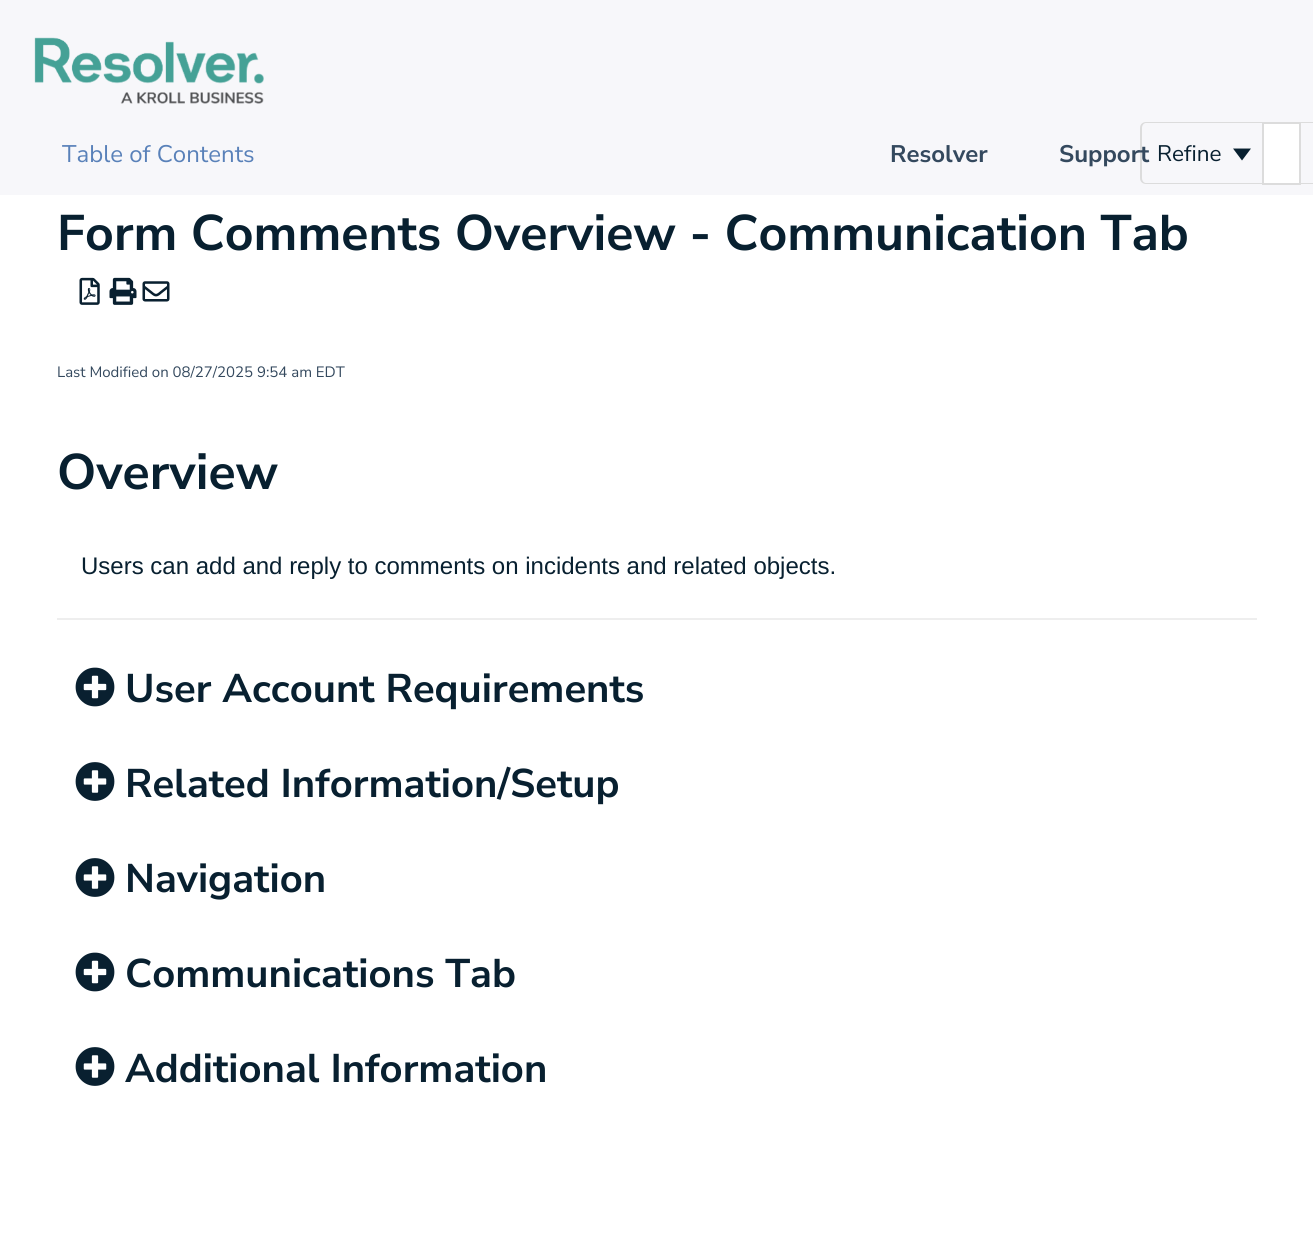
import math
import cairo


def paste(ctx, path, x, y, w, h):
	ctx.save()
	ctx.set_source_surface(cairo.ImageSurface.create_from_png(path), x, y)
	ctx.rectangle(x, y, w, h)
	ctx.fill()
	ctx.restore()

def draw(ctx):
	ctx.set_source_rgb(1, 1, 1)
	ctx.paint()
	ctx.set_source_rgb(0.965, 0.965, 0.98)
	ctx.rectangle(0, 0, 1313, 195)
	ctx.fill()
	paste(ctx, 'media/1.png', 34, 37, 230, 67)
	ctx.select_font_face('Nunito Sans')
	ctx.set_font_size(24)
	ctx.set_source_rgb(0.349, 0.506, 0.725)
	ctx.move_to(62, 162)
	ctx.show_text('Table of Contents')
	ctx.select_font_face('Nunito Sans', cairo.FONT_SLANT_NORMAL, cairo.FONT_WEIGHT_BOLD)
	ctx.set_source_rgb(0.204, 0.286, 0.369)
	ctx.move_to(890, 162)
	ctx.show_text('Resolver')
	ctx.set_source_rgb(0.863, 0.863, 0.863)
	ctx.set_fill_rule(cairo.FILL_RULE_EVEN_ODD)
	ctx.new_path()
	ctx.move_to(1146, 122)
	ctx.line_to(1266, 122)
	ctx.line_to(1266, 184)
	ctx.line_to(1146, 184)
	ctx.curve_to(1143, 184, 1140, 182, 1140, 178)
	ctx.line_to(1140, 128)
	ctx.curve_to(1140, 124, 1143, 122, 1146, 122)
	ctx.close_path()
	ctx.move_to(1146, 123)
	ctx.line_to(1266, 123)
	ctx.line_to(1266, 183)
	ctx.line_to(1146, 183)
	ctx.curve_to(1144, 183, 1142, 181, 1142, 178)
	ctx.line_to(1142, 128)
	ctx.curve_to(1142, 125, 1144, 123, 1146, 123)
	ctx.close_path()
	ctx.fill()
	ctx.set_source_rgb(0.204, 0.286, 0.369)
	ctx.move_to(1059, 162)
	ctx.show_text('Support')
	ctx.select_font_face('Nunito Sans')
	ctx.set_font_size(22.5)
	ctx.set_source_rgb(0.035, 0.125, 0.188)
	ctx.move_to(1157, 161)
	ctx.show_text('Refine')
	ctx.set_fill_rule(cairo.FILL_RULE_WINDING)
	ctx.new_path()
	ctx.move_to(1233, 148.5)
	ctx.line_to(1251, 148.5)
	ctx.line_to(1242, 160.5)
	ctx.close_path()
	ctx.fill()
	ctx.set_source_rgb(0.863, 0.863, 0.863)
	ctx.set_fill_rule(cairo.FILL_RULE_EVEN_ODD)
	ctx.new_path()
	ctx.move_to(1296, 122)
	ctx.line_to(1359, 122)
	ctx.curve_to(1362, 122, 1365, 124, 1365, 128)
	ctx.line_to(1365, 178)
	ctx.curve_to(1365, 182, 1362, 184, 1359, 184)
	ctx.line_to(1296, 184)
	ctx.close_path()
	ctx.move_to(1296, 123)
	ctx.line_to(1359, 123)
	ctx.curve_to(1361, 123, 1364, 125, 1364, 128)
	ctx.line_to(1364, 178)
	ctx.curve_to(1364, 181, 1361, 183, 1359, 183)
	ctx.line_to(1296, 183)
	ctx.close_path()
	ctx.fill()
	ctx.set_source_rgb(1, 1, 1)
	ctx.rectangle(1263, 123, 37, 61)
	ctx.fill_preserve()
	ctx.set_source_rgb(0.863, 0.863, 0.863)
	ctx.stroke()
	ctx.select_font_face('Nunito Sans', cairo.FONT_SLANT_NORMAL, cairo.FONT_WEIGHT_BOLD)
	ctx.set_font_size(50)
	ctx.set_source_rgb(0.035, 0.125, 0.188)
	ctx.move_to(57, 250)
	ctx.show_text('Form Comments Overview - Communication Tab')
	paste(ctx, 'media/2.png', 79, 277, 21, 28)
	paste(ctx, 'media/3.png', 109, 277, 28, 28)
	paste(ctx, 'media/4.png', 142, 281, 28, 21)
	ctx.select_font_face('Nunito Sans')
	ctx.set_font_size(15)
	ctx.set_source_rgb(0.204, 0.286, 0.369)
	ctx.move_to(57, 377)
	ctx.show_text('Last Modified on 08/27/2025 9:54 am EDT')
	ctx.select_font_face('Nunito Sans', cairo.FONT_SLANT_NORMAL, cairo.FONT_WEIGHT_BOLD)
	ctx.set_font_size(50)
	ctx.set_source_rgb(0.035, 0.125, 0.188)
	ctx.move_to(57, 489)
	ctx.show_text('Overview')
	ctx.select_font_face('Liberation Sans')
	ctx.set_font_size(24)
	ctx.move_to(81, 574)
	ctx.show_text('Users can add and reply to comments on incidents and related objects.')
	ctx.set_source_rgb(0.933, 0.933, 0.933)
	ctx.rectangle(57, 618, 1200, 2)
	ctx.fill()
	paste(ctx, 'media/5.png', 75, 667, 40, 40)
	ctx.select_font_face('Nunito Sans', cairo.FONT_SLANT_NORMAL, cairo.FONT_WEIGHT_BOLD)
	ctx.set_font_size(40)
	ctx.set_source_rgb(0.035, 0.125, 0.188)
	ctx.move_to(125, 702)
	ctx.show_text('User Account Requirements')
	paste(ctx, 'media/6.png', 75, 762, 40, 39)
	ctx.move_to(125, 797)
	ctx.show_text('Related Information/Setup')
	paste(ctx, 'media/6.png', 75, 858, 40, 39)
	ctx.move_to(125, 892)
	ctx.show_text('Navigation')
	paste(ctx, 'media/5.png', 75, 952, 40, 40)
	ctx.move_to(125, 987)
	ctx.show_text('Communications Tab')
	paste(ctx, 'media/6.png', 75, 1047, 40, 39)
	ctx.move_to(125, 1082)
	ctx.show_text('Additional Information')


surface = cairo.ImageSurface(cairo.FORMAT_RGB24, 1313, 1242)
ctx = cairo.Context(surface)
options = cairo.FontOptions()
options.set_hint_metrics(cairo.HINT_METRICS_OFF)
options.set_hint_style(cairo.HINT_STYLE_NONE)
ctx.set_font_options(options)
ctx.set_miter_limit(4)
draw(ctx)
surface.write_to_png('image.png')
